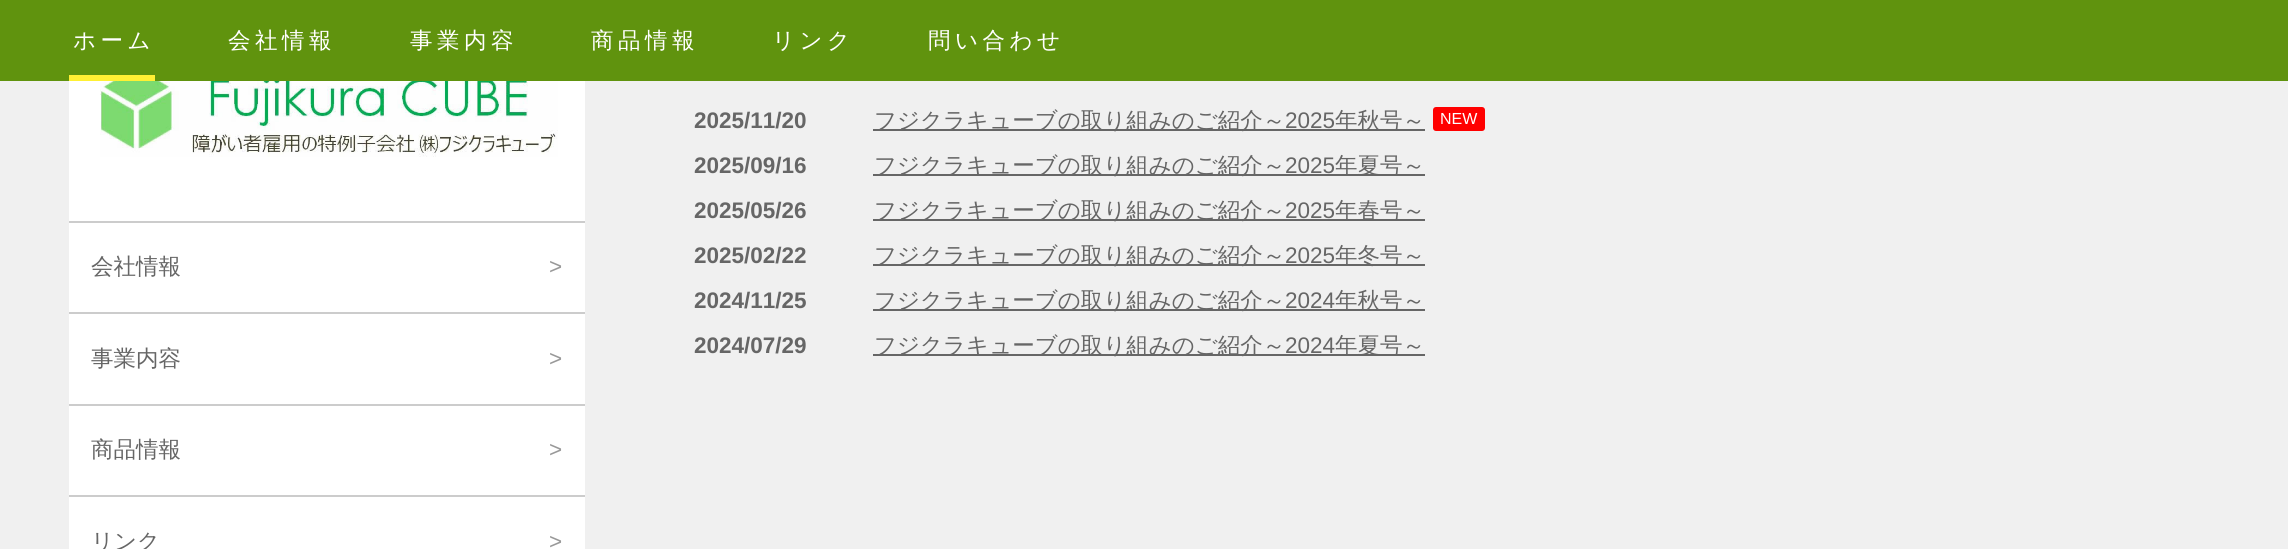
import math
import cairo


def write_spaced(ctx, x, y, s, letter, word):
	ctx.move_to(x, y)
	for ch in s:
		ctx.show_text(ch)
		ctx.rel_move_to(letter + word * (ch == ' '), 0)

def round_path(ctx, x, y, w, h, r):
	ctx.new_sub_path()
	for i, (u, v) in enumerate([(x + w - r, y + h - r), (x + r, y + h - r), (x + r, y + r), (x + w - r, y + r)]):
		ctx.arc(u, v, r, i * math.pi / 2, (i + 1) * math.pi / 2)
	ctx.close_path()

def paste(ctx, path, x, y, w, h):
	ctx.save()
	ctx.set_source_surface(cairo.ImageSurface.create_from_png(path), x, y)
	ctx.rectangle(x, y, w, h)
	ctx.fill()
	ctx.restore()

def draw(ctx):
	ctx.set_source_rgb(0.941, 0.941, 0.941)
	ctx.paint()
	ctx.set_source_rgb(0.376, 0.576, 0.055)
	ctx.rectangle(0, 0, 2288, 81)
	ctx.fill()
	ctx.select_font_face('WenQuanYi Zen Hei Medium')
	ctx.set_font_size(22.5)
	ctx.set_source_rgb(1, 1, 1)
	write_spaced(ctx, 73, 48, 'ホーム', 4.5, 0)
	ctx.set_source_rgb(1, 0.941, 0.204)
	ctx.rectangle(69, 75, 86, 6)
	ctx.fill()
	ctx.set_source_rgb(1, 1, 1)
	for x, y, s in [
		(228, 48, '会社情報'),
		(410, 48, '事業内容'),
		(591, 48, '商品情報'),
		(772, 48, 'リンク'),
		(928, 48, '問い合わせ'),
	]:
		write_spaced(ctx, x, y, s, 4.5, 0)
	ctx.rectangle(69, 81, 516, 468)
	ctx.fill()
	ctx.set_source_rgb(0.8, 0.8, 0.8)
	ctx.rectangle(69, 221, 516, 2)
	ctx.fill()
	paste(ctx, 'media/1.png', 100, 81, 458, 76)
	ctx.rectangle(69, 312, 516, 2)
	ctx.fill()
	ctx.set_source_rgb(0.4, 0.4, 0.4)
	ctx.move_to(91, 274)
	ctx.show_text('会社情報')
	ctx.select_font_face('Liberation Sans')
	ctx.set_source_rgb(0.6, 0.6, 0.6)
	ctx.move_to(549, 274)
	ctx.show_text('>')
	ctx.set_source_rgb(0.8, 0.8, 0.8)
	ctx.rectangle(69, 404, 516, 2)
	ctx.fill()
	ctx.select_font_face('WenQuanYi Zen Hei Medium')
	ctx.set_source_rgb(0.4, 0.4, 0.4)
	ctx.move_to(91, 366)
	ctx.show_text('事業内容')
	ctx.select_font_face('Liberation Sans')
	ctx.set_source_rgb(0.6, 0.6, 0.6)
	ctx.move_to(549, 366)
	ctx.show_text('>')
	ctx.set_source_rgb(0.8, 0.8, 0.8)
	ctx.rectangle(69, 495, 516, 2)
	ctx.fill()
	ctx.select_font_face('WenQuanYi Zen Hei Medium')
	ctx.set_source_rgb(0.4, 0.4, 0.4)
	ctx.move_to(91, 457)
	ctx.show_text('商品情報')
	ctx.select_font_face('Liberation Sans')
	ctx.set_source_rgb(0.6, 0.6, 0.6)
	ctx.move_to(549, 457)
	ctx.show_text('>')
	ctx.select_font_face('WenQuanYi Zen Hei Medium')
	ctx.set_source_rgb(0.4, 0.4, 0.4)
	ctx.move_to(91, 549)
	ctx.show_text('リンク')
	ctx.select_font_face('Liberation Sans')
	ctx.set_source_rgb(0.6, 0.6, 0.6)
	ctx.move_to(549, 549)
	ctx.show_text('>')
	ctx.select_font_face('Liberation Sans', cairo.FONT_SLANT_NORMAL, cairo.FONT_WEIGHT_BOLD)
	ctx.set_source_rgb(0.4, 0.4, 0.4)
	ctx.move_to(694, 128)
	ctx.show_text('2025/11/20')
	ctx.rectangle(873, 129, 552, 2)
	ctx.fill()
	ctx.select_font_face('WenQuanYi Zen Hei Medium')
	ctx.move_to(874, 128)
	ctx.show_text('フジクラキューブの取り組みのご紹介～')
	ctx.select_font_face('Liberation Sans')
	ctx.move_to(1285, 128)
	ctx.show_text('2025')
	ctx.select_font_face('WenQuanYi Zen Hei Medium')
	ctx.move_to(1335, 128)
	ctx.show_text('年秋号～')
	ctx.set_source_rgb(1, 0, 0)
	round_path(ctx, 1433, 107, 52, 24, 3)
	ctx.fill()
	ctx.select_font_face('Liberation Sans')
	ctx.set_font_size(16)
	ctx.set_source_rgb(1, 1, 1)
	ctx.move_to(1440, 124)
	ctx.show_text('NEW')
	ctx.select_font_face('Liberation Sans', cairo.FONT_SLANT_NORMAL, cairo.FONT_WEIGHT_BOLD)
	ctx.set_font_size(22.5)
	ctx.set_source_rgb(0.4, 0.4, 0.4)
	ctx.move_to(694, 173)
	ctx.show_text('2025/09/16')
	ctx.rectangle(873, 174, 552, 2)
	ctx.fill()
	ctx.select_font_face('WenQuanYi Zen Hei Medium')
	ctx.move_to(874, 173)
	ctx.show_text('フジクラキューブの取り組みのご紹介～')
	ctx.select_font_face('Liberation Sans')
	ctx.move_to(1285, 173)
	ctx.show_text('2025')
	ctx.select_font_face('WenQuanYi Zen Hei Medium')
	ctx.move_to(1335, 173)
	ctx.show_text('年夏号～')
	ctx.select_font_face('Liberation Sans', cairo.FONT_SLANT_NORMAL, cairo.FONT_WEIGHT_BOLD)
	ctx.move_to(694, 218)
	ctx.show_text('2025/05/26')
	ctx.rectangle(873, 219, 552, 2)
	ctx.fill()
	ctx.select_font_face('WenQuanYi Zen Hei Medium')
	ctx.move_to(874, 218)
	ctx.show_text('フジクラキューブの取り組みのご紹介～')
	ctx.select_font_face('Liberation Sans')
	ctx.move_to(1285, 218)
	ctx.show_text('2025')
	ctx.select_font_face('WenQuanYi Zen Hei Medium')
	ctx.move_to(1335, 218)
	ctx.show_text('年春号～')
	ctx.select_font_face('Liberation Sans', cairo.FONT_SLANT_NORMAL, cairo.FONT_WEIGHT_BOLD)
	ctx.move_to(694, 263)
	ctx.show_text('2025/02/22')
	ctx.rectangle(873, 264, 552, 2)
	ctx.fill()
	ctx.select_font_face('WenQuanYi Zen Hei Medium')
	ctx.move_to(874, 263)
	ctx.show_text('フジクラキューブの取り組みのご紹介～')
	ctx.select_font_face('Liberation Sans')
	ctx.move_to(1285, 263)
	ctx.show_text('2025')
	ctx.select_font_face('WenQuanYi Zen Hei Medium')
	ctx.move_to(1335, 263)
	ctx.show_text('年冬号～')
	ctx.select_font_face('Liberation Sans', cairo.FONT_SLANT_NORMAL, cairo.FONT_WEIGHT_BOLD)
	ctx.move_to(694, 308)
	ctx.show_text('2024/11/25')
	ctx.rectangle(873, 309, 552, 2)
	ctx.fill()
	ctx.select_font_face('WenQuanYi Zen Hei Medium')
	ctx.move_to(874, 308)
	ctx.show_text('フジクラキューブの取り組みのご紹介～')
	ctx.select_font_face('Liberation Sans')
	ctx.move_to(1285, 308)
	ctx.show_text('2024')
	ctx.select_font_face('WenQuanYi Zen Hei Medium')
	ctx.move_to(1335, 308)
	ctx.show_text('年秋号～')
	ctx.select_font_face('Liberation Sans', cairo.FONT_SLANT_NORMAL, cairo.FONT_WEIGHT_BOLD)
	ctx.move_to(694, 353)
	ctx.show_text('2024/07/29')
	ctx.rectangle(873, 354, 552, 2)
	ctx.fill()
	ctx.select_font_face('WenQuanYi Zen Hei Medium')
	ctx.move_to(874, 353)
	ctx.show_text('フジクラキューブの取り組みのご紹介～')
	ctx.select_font_face('Liberation Sans')
	ctx.move_to(1285, 353)
	ctx.show_text('2024')
	ctx.select_font_face('WenQuanYi Zen Hei Medium')
	ctx.move_to(1335, 353)
	ctx.show_text('年夏号～')


surface = cairo.ImageSurface(cairo.FORMAT_RGB24, 2288, 549)
ctx = cairo.Context(surface)
options = cairo.FontOptions()
options.set_hint_metrics(cairo.HINT_METRICS_OFF)
options.set_hint_style(cairo.HINT_STYLE_NONE)
ctx.set_font_options(options)
ctx.set_miter_limit(4)
draw(ctx)
surface.write_to_png('image.png')
